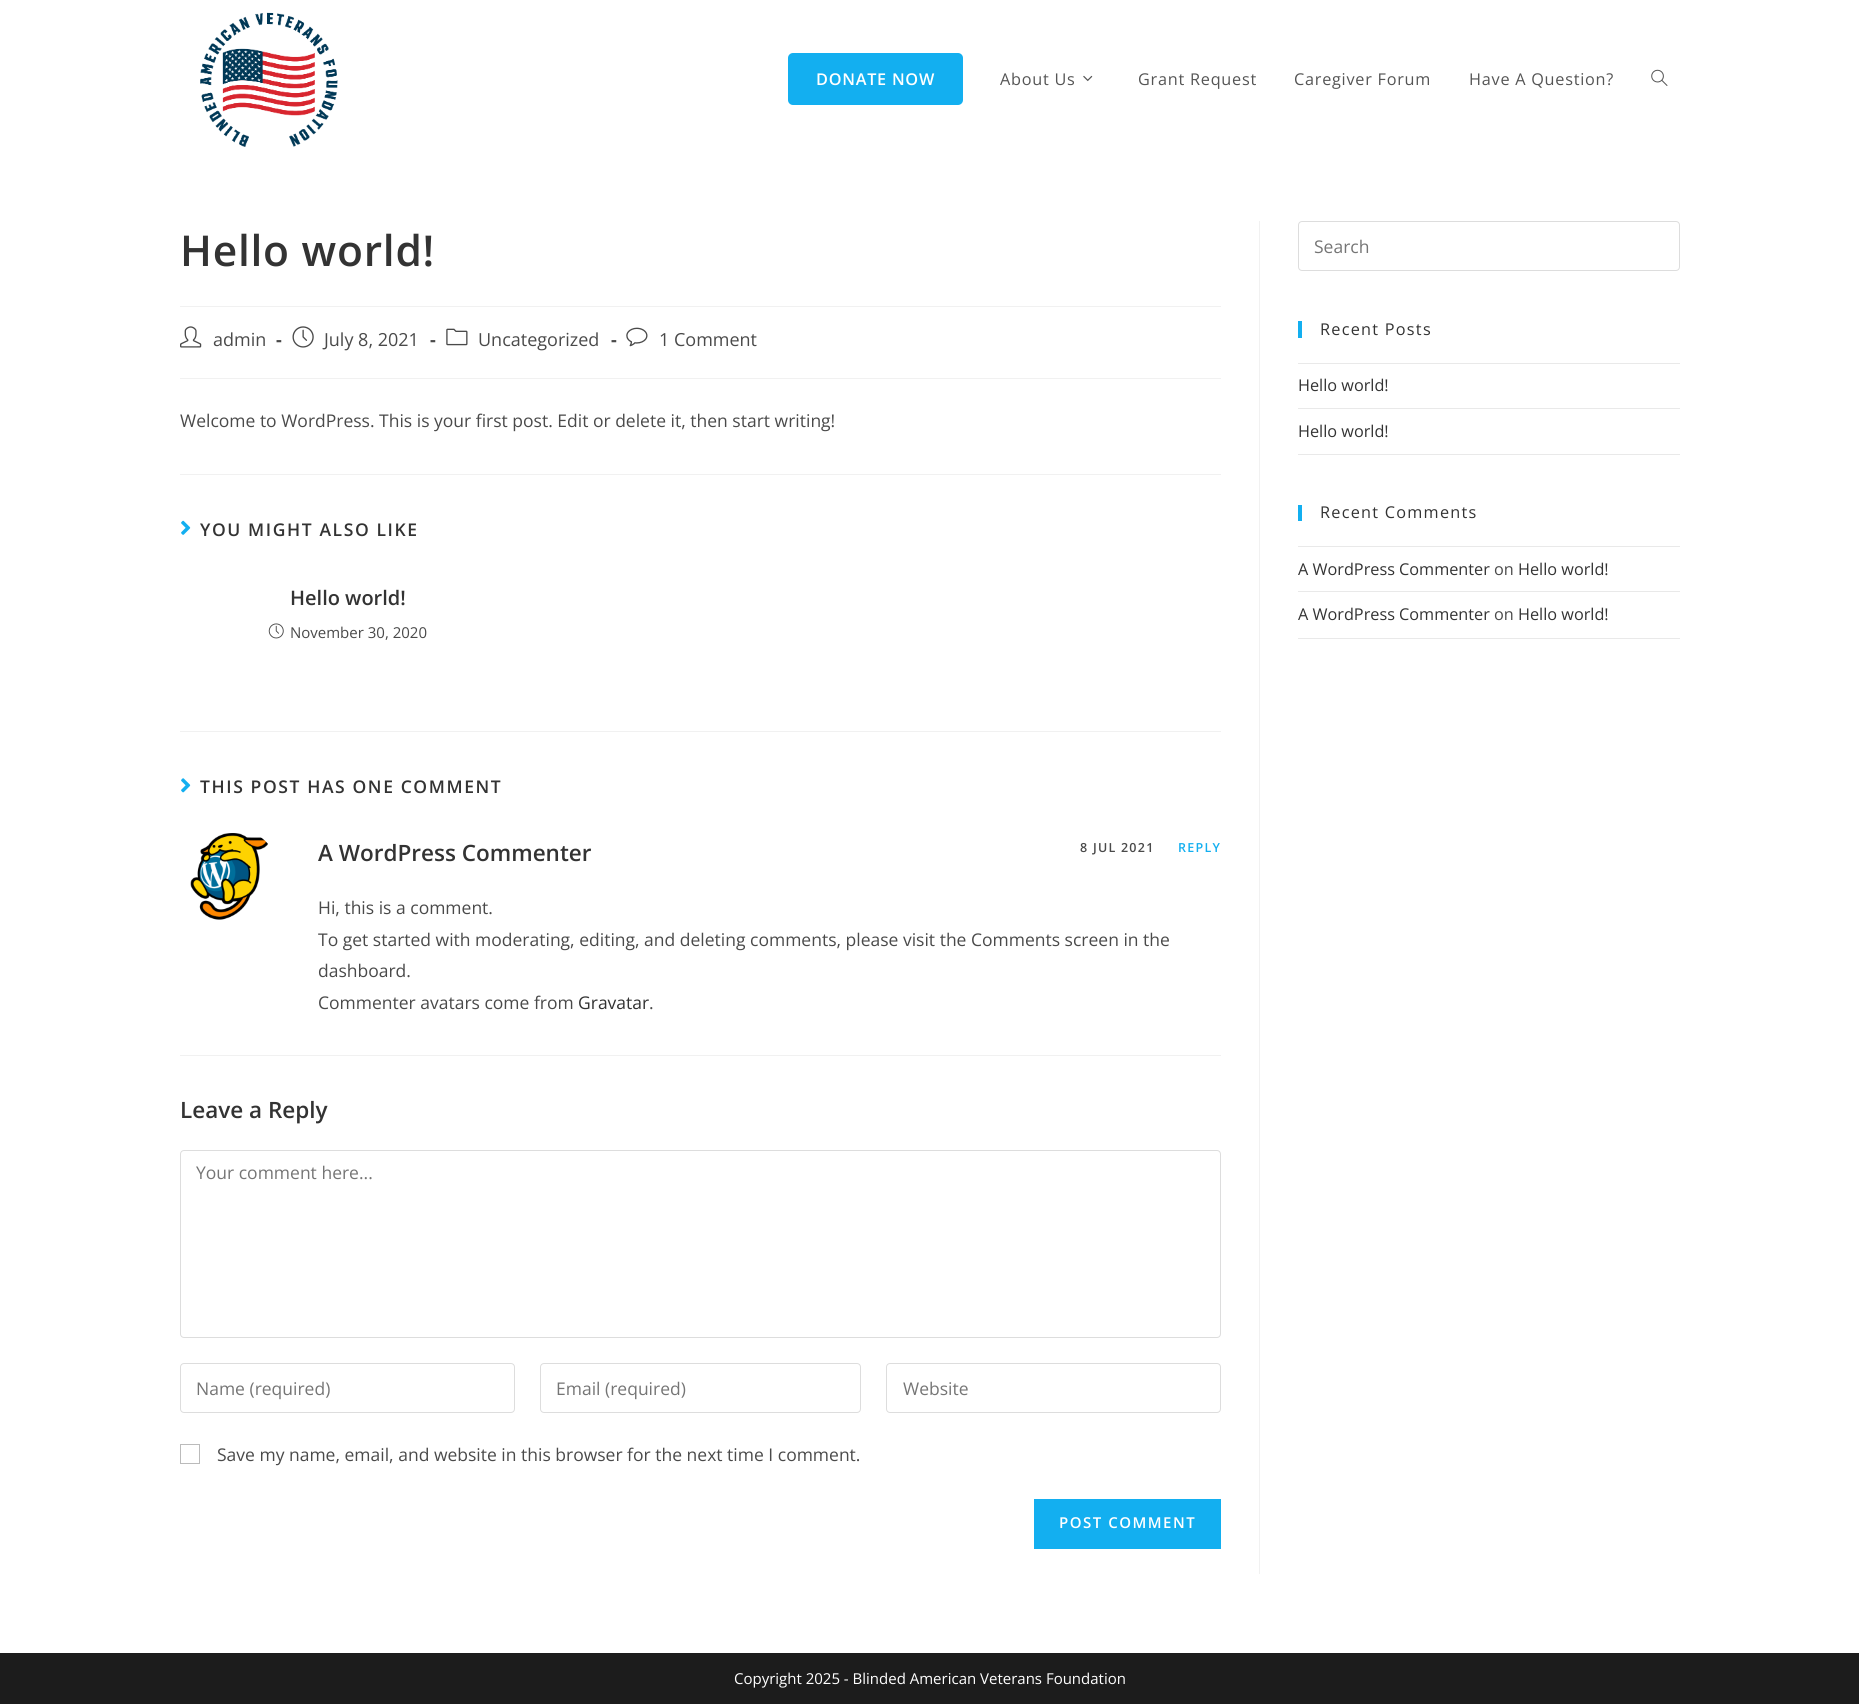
import math
import cairo


def write_spaced(ctx, x, y, s, letter, word):
	ctx.move_to(x, y)
	for ch in s:
		ctx.show_text(ch)
		ctx.rel_move_to(letter + word * (ch == ' '), 0)

def round_path(ctx, x, y, w, h, r):
	ctx.new_sub_path()
	for i, (u, v) in enumerate([(x + w - r, y + h - r), (x + r, y + h - r), (x + r, y + r), (x + w - r, y + r)]):
		ctx.arc(u, v, r, i * math.pi / 2, (i + 1) * math.pi / 2)
	ctx.close_path()

def paste(ctx, path, x, y, w, h):
	ctx.save()
	ctx.set_source_surface(cairo.ImageSurface.create_from_png(path), x, y)
	ctx.rectangle(x, y, w, h)
	ctx.fill()
	ctx.restore()

def draw(ctx):
	ctx.set_source_rgb(1, 1, 1)
	ctx.paint()
	paste(ctx, 'media/1.png', 200, 12, 138, 135)
	ctx.set_source_rgb(0.075, 0.686, 0.941)
	round_path(ctx, 788, 53, 175, 52, 5)
	ctx.fill()
	ctx.select_font_face('Open Sans SemiBold')
	ctx.set_font_size(16.25)
	ctx.set_source_rgb(1, 1, 1)
	write_spaced(ctx, 816, 85, 'DONATE NOW', 0.75, 0)
	ctx.select_font_face('Open Sans')
	ctx.set_source_rgb(0.333, 0.333, 0.333)
	write_spaced(ctx, 1000, 85, 'About Us', 0.75, 0)
	paste(ctx, 'media/2.png', 1083, 75, 10, 7)
	for x, y, s in [
		(1138, 85, 'Grant Request'),
		(1294, 85, 'Caregiver Forum'),
		(1469, 85, 'Have A Question?'),
	]:
		write_spaced(ctx, x, y, s, 0.75, 0)
	paste(ctx, 'media/3.png', 1651, 69, 17, 17)
	ctx.set_source_rgb(0.945, 0.945, 0.945)
	ctx.rectangle(1259, 221, 1, 1353)
	ctx.fill()
	ctx.rectangle(180, 306, 1041, 1)
	ctx.fill()
	ctx.select_font_face('Open Sans SemiBold')
	ctx.set_font_size(42.5)
	ctx.set_source_rgb(0.2, 0.2, 0.2)
	write_spaced(ctx, 180, 266, 'Hello world!', 0.75, 0)
	ctx.set_source_rgb(0.945, 0.945, 0.945)
	ctx.rectangle(180, 378, 1041, 1)
	ctx.fill()
	paste(ctx, 'media/4.png', 180, 326, 22, 22)
	ctx.select_font_face('Open Sans')
	ctx.set_font_size(18)
	ctx.set_source_rgb(0.29, 0.29, 0.29)
	ctx.move_to(213, 346)
	ctx.show_text('admin')
	ctx.select_font_face('Open Sans', cairo.FONT_SLANT_NORMAL, cairo.FONT_WEIGHT_BOLD)
	ctx.move_to(276, 346)
	ctx.show_text('-')
	paste(ctx, 'media/5.png', 292, 326, 22, 22)
	ctx.select_font_face('Open Sans')
	ctx.move_to(324, 346)
	ctx.show_text('July 8, 2021')
	ctx.select_font_face('Open Sans', cairo.FONT_SLANT_NORMAL, cairo.FONT_WEIGHT_BOLD)
	ctx.move_to(430, 346)
	ctx.show_text('-')
	paste(ctx, 'media/6.png', 446, 328, 22, 18)
	ctx.select_font_face('Open Sans')
	ctx.move_to(478, 346)
	ctx.show_text('Uncategorized')
	ctx.select_font_face('Open Sans', cairo.FONT_SLANT_NORMAL, cairo.FONT_WEIGHT_BOLD)
	ctx.move_to(611, 346)
	ctx.show_text('-')
	paste(ctx, 'media/7.png', 626, 327, 22, 20)
	ctx.select_font_face('Open Sans')
	ctx.move_to(659, 346)
	ctx.show_text('1 Comment')
	ctx.set_font_size(17.5)
	ctx.move_to(180, 427)
	ctx.show_text('Welcome to WordPress. This is your first post. Edit or delete it, then start writing!')
	ctx.set_source_rgb(0.945, 0.945, 0.945)
	ctx.rectangle(180, 474, 1041, 1)
	ctx.fill()
	paste(ctx, 'media/8.png', 181, 520, 10, 15)
	ctx.select_font_face('Open Sans SemiBold')
	ctx.set_source_rgb(0.2, 0.2, 0.2)
	write_spaced(ctx, 200, 536, 'YOU MIGHT ALSO LIKE', 1.6, 0)
	ctx.set_font_size(20)
	ctx.move_to(290, 605)
	ctx.show_text('Hello world!')
	paste(ctx, 'media/9.png', 268, 623, 16, 16)
	ctx.select_font_face('Open Sans')
	ctx.set_font_size(15)
	ctx.set_source_rgb(0.29, 0.29, 0.29)
	ctx.move_to(290, 638)
	ctx.show_text('November 30, 2020')
	ctx.set_source_rgb(0.945, 0.945, 0.945)
	ctx.rectangle(180, 731, 1041, 1)
	ctx.fill()
	paste(ctx, 'media/10.png', 181, 778, 10, 15)
	ctx.select_font_face('Open Sans SemiBold')
	ctx.set_font_size(17.5)
	ctx.set_source_rgb(0.2, 0.2, 0.2)
	write_spaced(ctx, 200, 793, 'THIS POST HAS ONE COMMENT', 1.6, 0)
	ctx.set_source_rgb(0.945, 0.945, 0.945)
	ctx.rectangle(180, 1055, 1041, 1)
	ctx.fill()
	paste(ctx, 'media/11.png', 190, 833, 78, 87)
	ctx.set_font_size(22.5)
	ctx.set_source_rgb(0.2, 0.2, 0.2)
	ctx.move_to(318, 861)
	ctx.show_text('A WordPress Commenter')
	ctx.set_font_size(12.5)
	ctx.set_source_rgb(0.29, 0.29, 0.29)
	write_spaced(ctx, 1080, 852, '8 JUL 2021', 1.25, 0)
	ctx.set_source_rgb(0.075, 0.686, 0.941)
	write_spaced(ctx, 1178, 852, 'REPLY', 1.25, 0)
	ctx.select_font_face('Open Sans')
	ctx.set_font_size(17.5)
	ctx.set_source_rgb(0.29, 0.29, 0.29)
	for x, y, s in [
		(318, 914, 'Hi, this is a comment.'),
		(318, 946, 'To get started with moderating, editing, and deleting comments, please visit the Comments screen in the'),
		(318, 977, 'dashboard.'),
		(318, 1009, 'Commenter avatars come from'),
	]:
		ctx.move_to(x, y)
		ctx.show_text(s)
	ctx.set_source_rgb(0.2, 0.2, 0.2)
	ctx.move_to(578, 1009)
	ctx.show_text('Gravatar')
	ctx.set_source_rgb(0.29, 0.29, 0.29)
	ctx.move_to(649, 1009)
	ctx.show_text('.')
	ctx.select_font_face('Open Sans SemiBold')
	ctx.set_font_size(22.5)
	ctx.set_source_rgb(0.2, 0.2, 0.2)
	ctx.move_to(180, 1118)
	ctx.show_text('Leave a Reply')
	round_path(ctx, 180.5, 1150.5, 1040, 187, 3.5)
	ctx.set_source_rgb(0.867, 0.867, 0.867)
	ctx.set_line_width(1)
	ctx.stroke()
	ctx.select_font_face('Open Sans')
	ctx.set_font_size(17.5)
	ctx.set_source_rgb(0.459, 0.459, 0.459)
	ctx.move_to(196, 1179)
	ctx.show_text('Your comment here...')
	round_path(ctx, 180.5, 1363.5, 334, 49, 3.5)
	ctx.set_source_rgb(0.867, 0.867, 0.867)
	ctx.stroke()
	ctx.set_source_rgb(0.459, 0.459, 0.459)
	ctx.move_to(196, 1395)
	ctx.show_text('Name (required)')
	round_path(ctx, 540.5, 1363.5, 320, 49, 3.5)
	ctx.set_source_rgb(0.867, 0.867, 0.867)
	ctx.stroke()
	ctx.set_source_rgb(0.459, 0.459, 0.459)
	ctx.move_to(556, 1395)
	ctx.show_text('Email (required)')
	round_path(ctx, 886.5, 1363.5, 334, 49, 3.5)
	ctx.set_source_rgb(0.867, 0.867, 0.867)
	ctx.stroke()
	ctx.set_source_rgb(0.459, 0.459, 0.459)
	ctx.move_to(903, 1395)
	ctx.show_text('Website')
	ctx.rectangle(180.5, 1444.5, 19, 19)
	ctx.set_source_rgb(0.733, 0.733, 0.733)
	ctx.stroke()
	ctx.set_source_rgb(0.29, 0.29, 0.29)
	ctx.move_to(217, 1461)
	ctx.show_text('Save my name, email, and website in this browser for the next time I comment.')
	ctx.set_source_rgb(0.075, 0.686, 0.941)
	ctx.rectangle(1034, 1499, 187, 50)
	ctx.fill()
	ctx.select_font_face('Open Sans SemiBold')
	ctx.set_font_size(15)
	ctx.set_source_rgb(1, 1, 1)
	write_spaced(ctx, 1059, 1528, 'POST COMMENT', 1.5, 0)
	round_path(ctx, 1298.5, 221.5, 381, 49, 3.5)
	ctx.set_source_rgb(0.867, 0.867, 0.867)
	ctx.stroke()
	ctx.select_font_face('Open Sans')
	ctx.set_font_size(17.5)
	ctx.set_source_rgb(0.459, 0.459, 0.459)
	ctx.move_to(1314, 253)
	ctx.show_text('Search')
	ctx.set_source_rgb(0.075, 0.686, 0.941)
	ctx.rectangle(1298, 321, 4, 17)
	ctx.fill()
	ctx.set_font_size(16.25)
	ctx.set_source_rgb(0.2, 0.2, 0.2)
	write_spaced(ctx, 1320, 335, 'Recent Posts', 1.25, 0)
	ctx.set_source_rgb(0.914, 0.914, 0.914)
	ctx.rectangle(1298, 363, 382, 1)
	ctx.fill()
	ctx.rectangle(1298, 408, 382, 1)
	ctx.fill()
	ctx.set_source_rgb(0.2, 0.2, 0.2)
	ctx.move_to(1298, 391)
	ctx.show_text('Hello world!')
	ctx.set_source_rgb(0.914, 0.914, 0.914)
	ctx.rectangle(1298, 454, 382, 1)
	ctx.fill()
	ctx.set_source_rgb(0.2, 0.2, 0.2)
	ctx.move_to(1298, 437)
	ctx.show_text('Hello world!')
	ctx.set_source_rgb(0.075, 0.686, 0.941)
	ctx.rectangle(1298, 505, 4, 16)
	ctx.fill()
	ctx.set_source_rgb(0.2, 0.2, 0.2)
	write_spaced(ctx, 1320, 518, 'Recent Comments', 1.25, 0)
	ctx.set_source_rgb(0.914, 0.914, 0.914)
	ctx.rectangle(1298, 546, 382, 1)
	ctx.fill()
	ctx.rectangle(1298, 591, 382, 1)
	ctx.fill()
	ctx.set_source_rgb(0.2, 0.2, 0.2)
	ctx.move_to(1298, 575)
	ctx.show_text('A WordPress Commenter')
	ctx.set_source_rgb(0.29, 0.29, 0.29)
	ctx.move_to(1494, 575)
	ctx.show_text('on')
	ctx.set_source_rgb(0.2, 0.2, 0.2)
	ctx.move_to(1518, 575)
	ctx.show_text('Hello world!')
	ctx.set_source_rgb(0.914, 0.914, 0.914)
	ctx.rectangle(1298, 638, 382, 1)
	ctx.fill()
	ctx.set_source_rgb(0.2, 0.2, 0.2)
	ctx.move_to(1298, 620)
	ctx.show_text('A WordPress Commenter')
	ctx.set_source_rgb(0.29, 0.29, 0.29)
	ctx.move_to(1494, 620)
	ctx.show_text('on')
	ctx.set_source_rgb(0.2, 0.2, 0.2)
	ctx.move_to(1518, 620)
	ctx.show_text('Hello world!')
	ctx.set_source_rgb(0.11, 0.11, 0.11)
	ctx.rectangle(0, 1653, 1859, 51)
	ctx.fill()
	ctx.set_font_size(15)
	ctx.set_source_rgb(1, 1, 1)
	ctx.move_to(734, 1684)
	ctx.show_text('Copyright 2025 - Blinded American Veterans Foundation')


surface = cairo.ImageSurface(cairo.FORMAT_RGB24, 1859, 1704)
ctx = cairo.Context(surface)
options = cairo.FontOptions()
options.set_hint_metrics(cairo.HINT_METRICS_OFF)
options.set_hint_style(cairo.HINT_STYLE_NONE)
ctx.set_font_options(options)
ctx.set_miter_limit(4)
draw(ctx)
surface.write_to_png('image.png')
